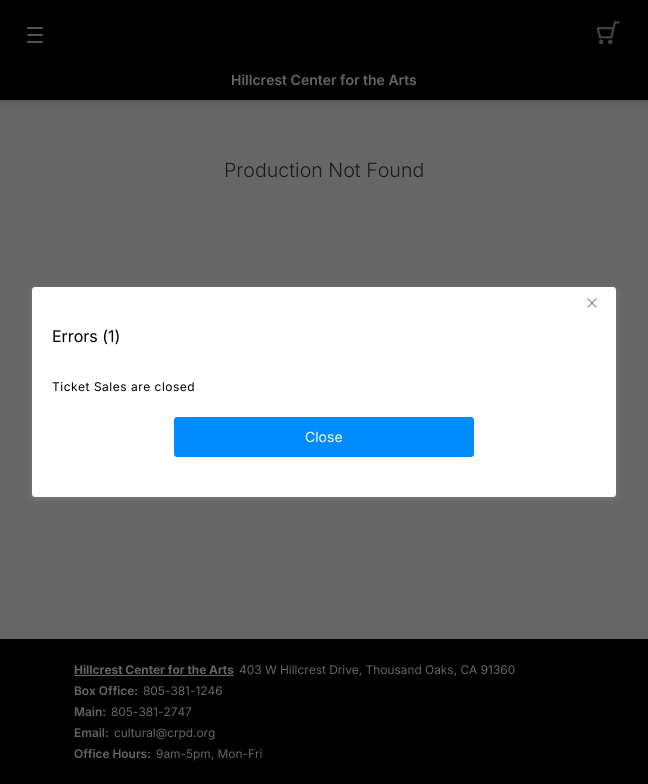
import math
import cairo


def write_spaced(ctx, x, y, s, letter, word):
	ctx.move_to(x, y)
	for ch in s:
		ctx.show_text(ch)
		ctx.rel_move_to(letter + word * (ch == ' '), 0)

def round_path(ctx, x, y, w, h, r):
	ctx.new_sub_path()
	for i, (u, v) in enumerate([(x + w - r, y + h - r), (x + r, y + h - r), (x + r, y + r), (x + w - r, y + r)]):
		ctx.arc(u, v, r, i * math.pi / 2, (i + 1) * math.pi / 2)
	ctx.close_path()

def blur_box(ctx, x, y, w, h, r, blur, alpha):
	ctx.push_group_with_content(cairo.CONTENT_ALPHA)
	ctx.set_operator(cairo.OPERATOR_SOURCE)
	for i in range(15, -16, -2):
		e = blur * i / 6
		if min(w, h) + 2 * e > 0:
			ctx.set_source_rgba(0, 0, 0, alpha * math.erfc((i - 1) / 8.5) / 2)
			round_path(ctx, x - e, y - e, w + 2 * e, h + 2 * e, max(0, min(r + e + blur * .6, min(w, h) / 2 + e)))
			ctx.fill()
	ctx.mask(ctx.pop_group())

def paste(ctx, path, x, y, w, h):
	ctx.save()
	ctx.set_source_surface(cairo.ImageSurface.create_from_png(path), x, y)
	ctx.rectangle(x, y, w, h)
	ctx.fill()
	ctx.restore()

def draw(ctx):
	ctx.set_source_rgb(0.4, 0.4, 0.4)
	ctx.paint()
	ctx.set_source_rgb(0, 0, 0)
	blur_box(ctx, 0, 2, 648, 100, 0, 4, 0.2)
	ctx.set_source_rgb(0, 0, 0)
	ctx.rectangle(0, 0, 648, 100)
	ctx.fill()
	paste(ctx, 'media/1.png', 27, 27, 16, 16)
	paste(ctx, 'media/2.png', 596, 21, 24, 24)
	ctx.select_font_face('Inter SemiBold')
	ctx.set_font_size(14)
	ctx.set_source_rgb(0.4, 0.4, 0.4)
	ctx.move_to(231, 85)
	ctx.show_text('Hillcrest Center for the Arts')
	ctx.select_font_face('Inter Light')
	ctx.set_font_size(19.6)
	ctx.set_source_rgb(0.094, 0.11, 0.118)
	ctx.move_to(224, 177)
	ctx.show_text('Production Not Found')
	ctx.set_source_rgb(0.533, 0.533, 0.533)
	blur_box(ctx, 32, 289, 584, 210, 3, 4, 0.5)
	ctx.set_source_rgb(1, 1, 1)
	round_path(ctx, 32, 287, 584, 210, 3)
	ctx.fill()
	paste(ctx, 'media/3.png', 587, 298, 10, 10)
	ctx.select_font_face('Inter')
	ctx.set_font_size(16)
	ctx.set_source_rgb(0, 0, 0)
	ctx.move_to(52, 342)
	ctx.show_text('Errors (1)')
	ctx.set_font_size(12)
	write_spaced(ctx, 52, 391, 'Ticket Sales are closed', 0.5, 0)
	ctx.set_source_rgb(0, 0.549, 1)
	round_path(ctx, 174.5, 417.5, 299, 39, 2.5)
	ctx.fill_preserve()
	ctx.set_line_width(1)
	ctx.stroke()
	ctx.set_font_size(14)
	ctx.set_source_rgb(1, 1, 1)
	ctx.move_to(305, 442)
	ctx.show_text('Close')
	ctx.set_source_rgb(0, 0, 0)
	ctx.rectangle(0, 639, 648, 145)
	ctx.fill()
	ctx.select_font_face('Inter', cairo.FONT_SLANT_NORMAL, cairo.FONT_WEIGHT_BOLD)
	ctx.set_font_size(11.9)
	ctx.set_source_rgb(0.4, 0.4, 0.4)
	ctx.move_to(74, 674)
	ctx.show_text('Hillcrest Center for the Arts')
	ctx.rectangle(74, 675, 160, 1)
	ctx.fill()
	ctx.select_font_face('Inter')
	ctx.move_to(239, 674)
	ctx.show_text('403 W Hillcrest Drive, Thousand Oaks, CA 91360')
	ctx.select_font_face('Inter SemiBold')
	ctx.move_to(74, 695)
	ctx.show_text('Box Office:')
	ctx.select_font_face('Inter')
	ctx.move_to(143, 695)
	ctx.show_text('805-381-1246')
	ctx.select_font_face('Inter SemiBold')
	ctx.move_to(74, 716)
	ctx.show_text('Main:')
	ctx.select_font_face('Inter')
	ctx.move_to(111, 716)
	ctx.show_text('805-381-2747')
	ctx.select_font_face('Inter SemiBold')
	ctx.move_to(74, 737)
	ctx.show_text('Email:')
	ctx.select_font_face('Inter')
	ctx.move_to(114, 737)
	ctx.show_text('cultural@crpd.org')
	ctx.select_font_face('Inter SemiBold')
	ctx.move_to(74, 758)
	ctx.show_text('Office Hours:')
	ctx.select_font_face('Inter')
	ctx.move_to(156, 758)
	ctx.show_text('9am-5pm, Mon-Fri')


surface = cairo.ImageSurface(cairo.FORMAT_RGB24, 648, 784)
ctx = cairo.Context(surface)
options = cairo.FontOptions()
options.set_hint_metrics(cairo.HINT_METRICS_OFF)
options.set_hint_style(cairo.HINT_STYLE_NONE)
ctx.set_font_options(options)
ctx.set_miter_limit(4)
draw(ctx)
surface.write_to_png('image.png')
